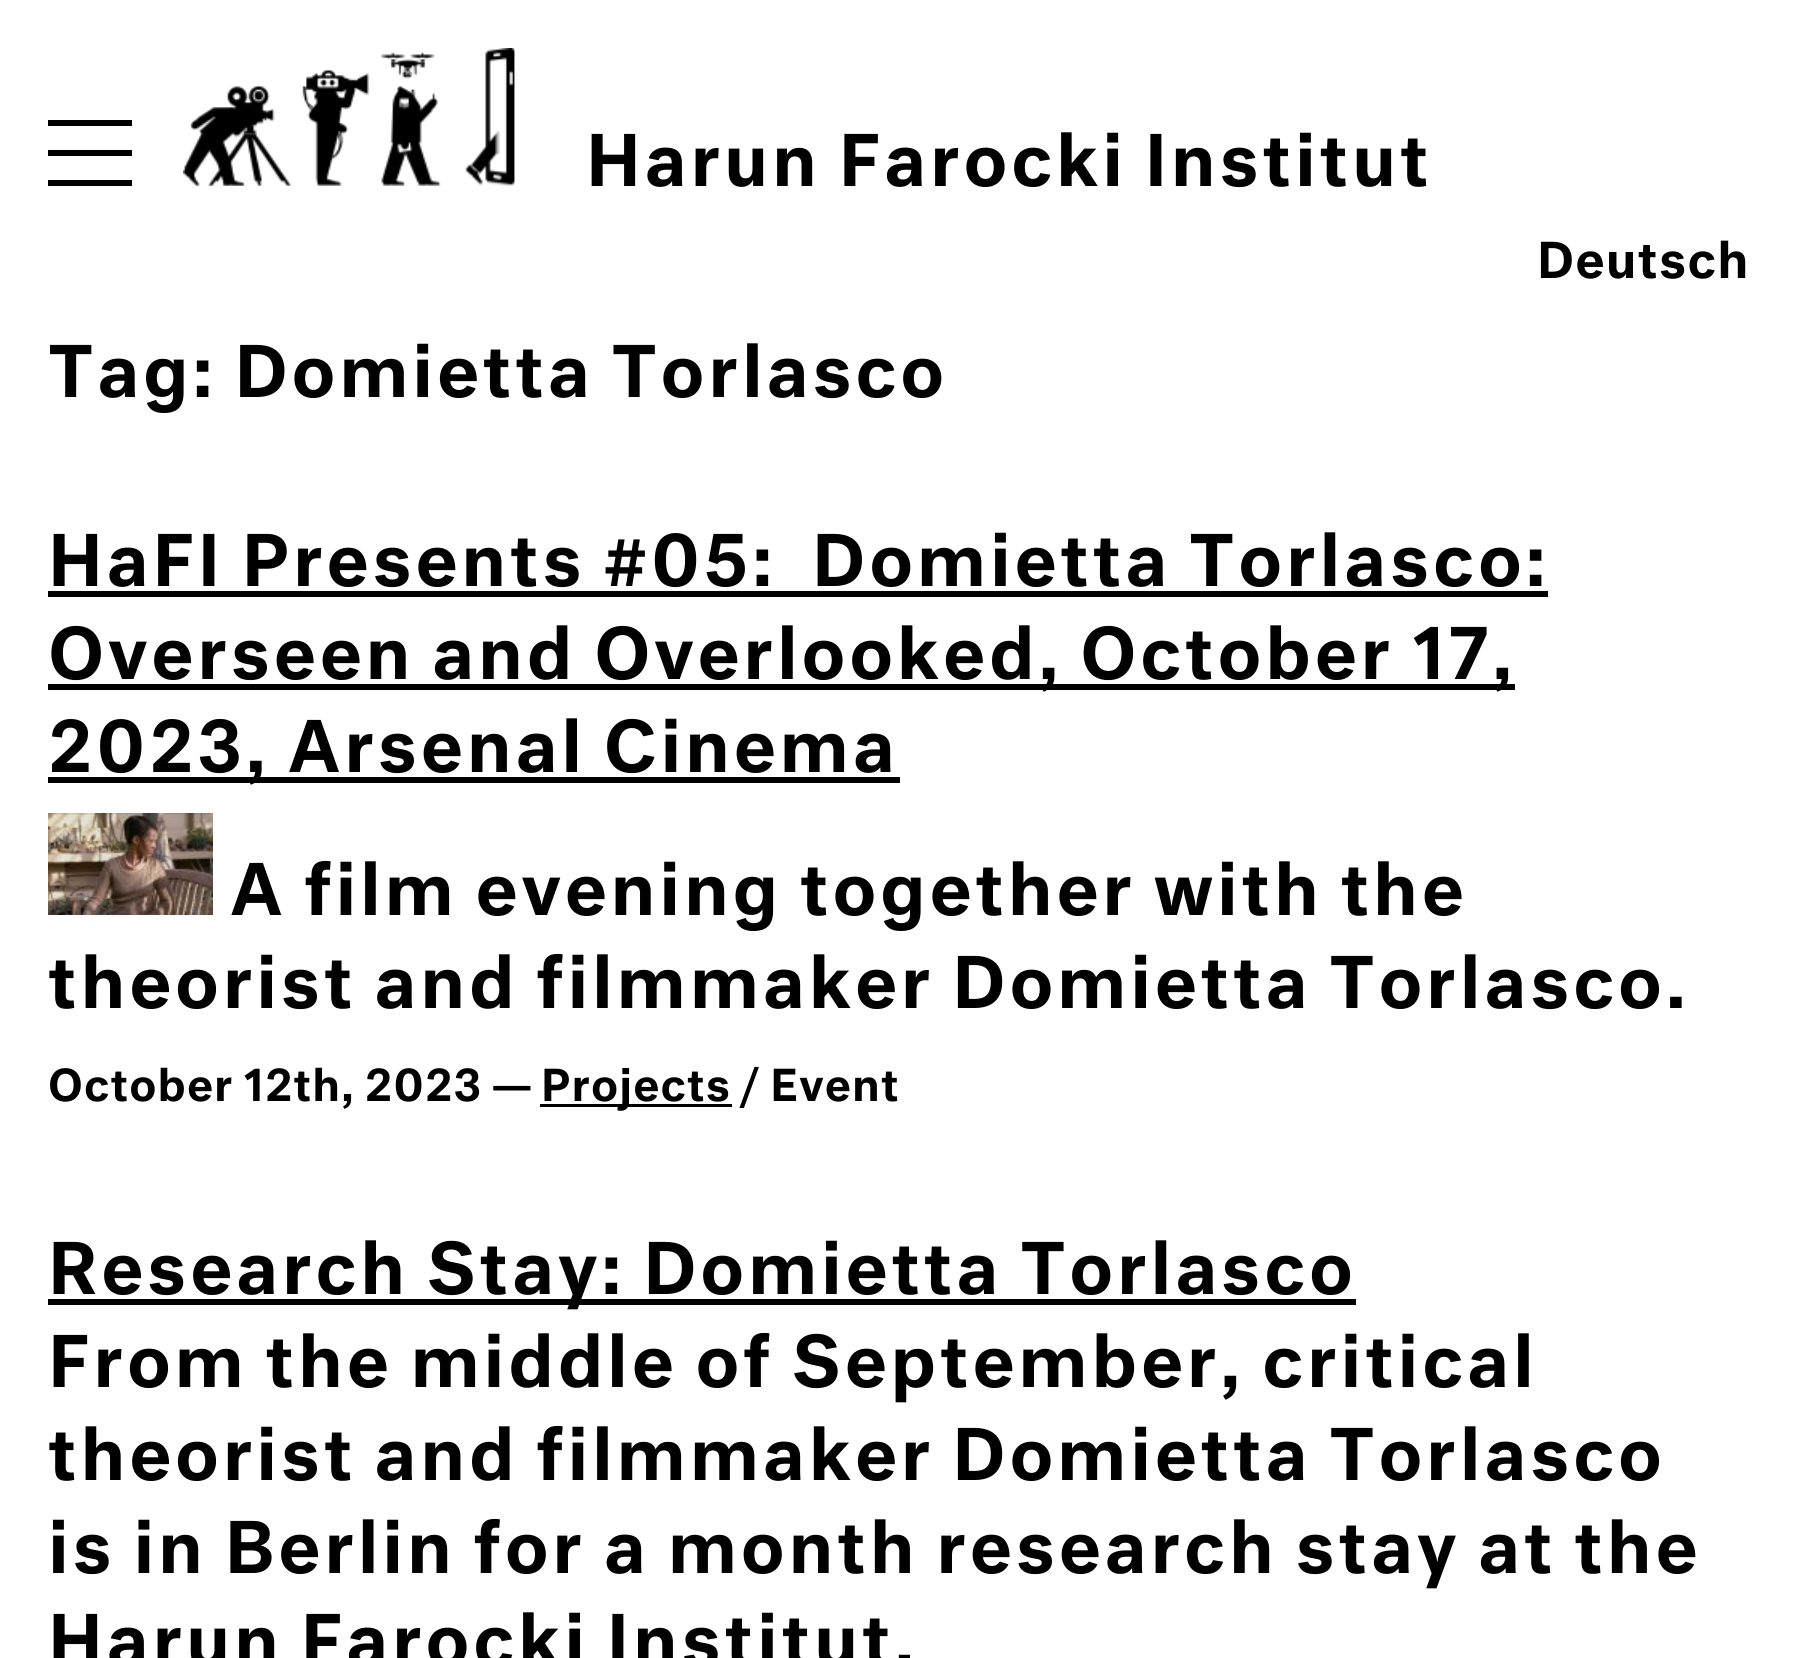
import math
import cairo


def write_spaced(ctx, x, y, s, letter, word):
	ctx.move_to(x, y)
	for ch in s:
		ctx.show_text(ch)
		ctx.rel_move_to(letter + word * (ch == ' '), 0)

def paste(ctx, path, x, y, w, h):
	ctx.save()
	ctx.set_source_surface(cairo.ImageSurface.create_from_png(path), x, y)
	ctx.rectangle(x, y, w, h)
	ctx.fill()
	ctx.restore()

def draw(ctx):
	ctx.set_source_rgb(1, 1, 1)
	ctx.paint()
	ctx.set_source_rgb(0, 0, 0)
	ctx.rectangle(48, 120, 84, 6)
	ctx.rectangle(48, 150, 84, 6)
	ctx.rectangle(48, 180, 84, 6)
	ctx.fill()
	paste(ctx, 'media/1.png', 183, 48, 332, 138)
	ctx.select_font_face('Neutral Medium')
	ctx.set_font_size(69)
	write_spaced(ctx, 586, 186, 'Harun Farocki Institut', 3.8, 0)
	ctx.set_font_size(48)
	write_spaced(ctx, 1537, 278, 'Deutsch', 1.25, 0)
	ctx.set_font_size(69)
	write_spaced(ctx, 48, 397, 'Tag: Domietta Torlasco', 3.8, 0)
	write_spaced(ctx, 48, 586, 'HaFI Presents #05:  Domietta Torlasco:', 3.8, 0)
	ctx.rectangle(48, 591, 1500, 6)
	ctx.fill()
	ctx.rectangle(48, 684, 1467, 6)
	ctx.fill()
	write_spaced(ctx, 48, 679, 'Overseen and Overlooked, October 17,', 3.8, 0)
	ctx.rectangle(48, 777, 852, 6)
	ctx.fill()
	write_spaced(ctx, 48, 772, '2023, Arsenal Cinema', 3.8, 0)
	paste(ctx, 'media/2.png', 48, 813, 165, 102)
	write_spaced(ctx, 230, 915, 'A film evening together with the', 3.8, 0)
	write_spaced(ctx, 48, 1008, 'theorist and filmmaker Domietta Torlasco.', 3.8, 0)
	ctx.set_font_size(42.75)
	write_spaced(ctx, 48, 1101, 'October 12th, 2023 —', 1.1, 0)
	ctx.rectangle(540, 1104, 192, 3)
	ctx.fill()
	write_spaced(ctx, 541, 1101, 'Projects / Event', 1.1, 0)
	ctx.rectangle(48, 1299, 1308, 6)
	ctx.fill()
	ctx.set_font_size(69)
	for x, y, s in [
		(48, 1294, 'Research Stay: Domietta Torlasco'),
		(48, 1387, 'From the middle of September, critical'),
		(48, 1480, 'theorist and filmmaker Domietta Torlasco'),
		(48, 1573, 'is in Berlin for a month research stay at the'),
		(48, 1666, 'Harun Farocki Institut.'),
	]:
		write_spaced(ctx, x, y, s, 3.8, 0)


surface = cairo.ImageSurface(cairo.FORMAT_RGB24, 1797, 1658)
ctx = cairo.Context(surface)
options = cairo.FontOptions()
options.set_hint_metrics(cairo.HINT_METRICS_OFF)
options.set_hint_style(cairo.HINT_STYLE_NONE)
ctx.set_font_options(options)
ctx.set_miter_limit(4)
draw(ctx)
surface.write_to_png('image.png')
